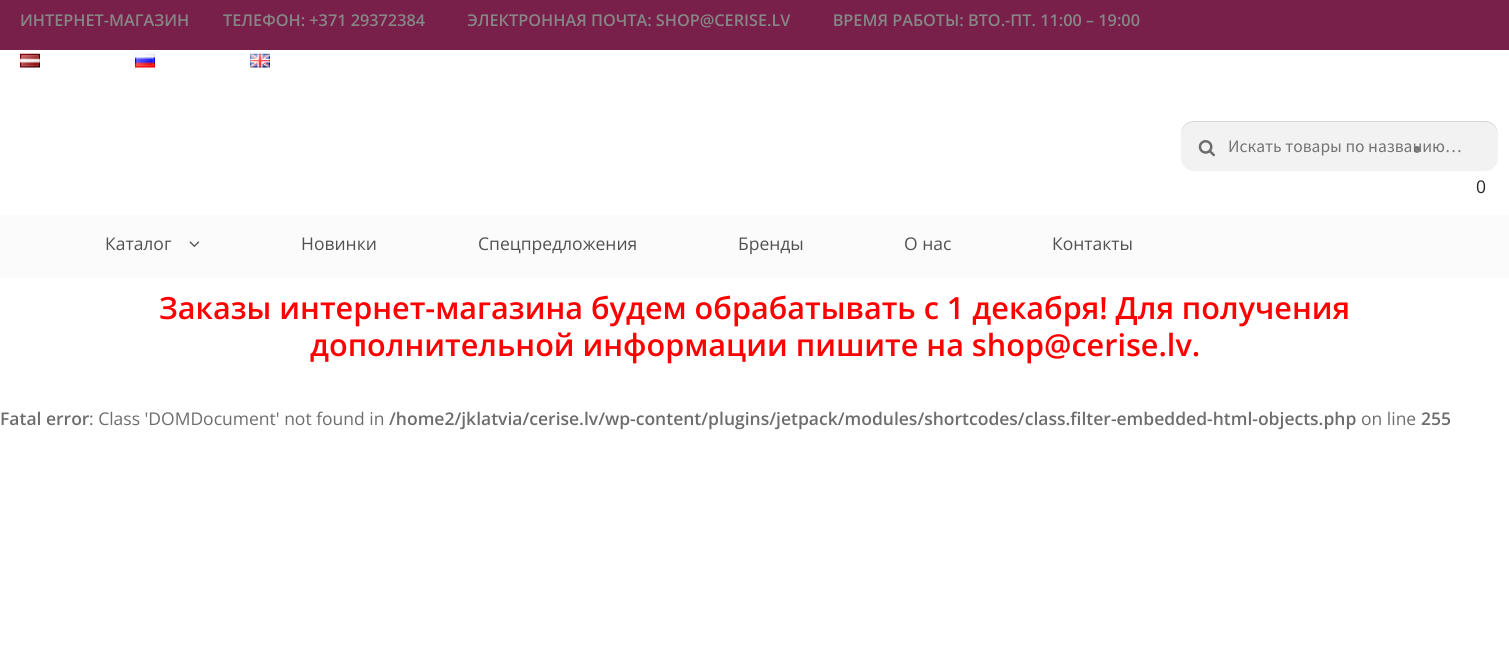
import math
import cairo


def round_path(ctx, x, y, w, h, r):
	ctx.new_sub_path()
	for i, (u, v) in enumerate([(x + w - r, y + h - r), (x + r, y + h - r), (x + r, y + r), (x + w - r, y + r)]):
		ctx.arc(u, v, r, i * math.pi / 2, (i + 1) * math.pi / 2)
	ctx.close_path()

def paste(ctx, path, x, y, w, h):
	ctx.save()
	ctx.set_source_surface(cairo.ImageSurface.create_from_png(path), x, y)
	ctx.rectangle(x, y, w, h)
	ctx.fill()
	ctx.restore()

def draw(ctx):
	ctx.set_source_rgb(1, 1, 1)
	ctx.paint()
	ctx.set_source_rgb(0.984, 0.984, 0.984)
	ctx.rectangle(0, 215, 1509, 63)
	ctx.fill()
	ctx.set_source_rgb(0.471, 0.125, 0.29)
	ctx.rectangle(0, 0, 1509, 50)
	ctx.fill()
	ctx.select_font_face('Open Sans SemiBold')
	ctx.set_font_size(16.25)
	ctx.set_source_rgb(0.525, 0.525, 0.525)
	ctx.move_to(20, 26)
	ctx.show_text('ИНТЕРНЕТ-МАГАЗИН        ТЕЛЕФОН: +371 29372384          ЭЛЕКТРОННАЯ ПОЧТА: SHOP@CERISE.LV          ВРЕМЯ РАБОТЫ: BТО.-ПТ. 11:00 – 19:00')
	paste(ctx, 'media/1.png', 20, 53, 20, 15)
	paste(ctx, 'media/2.png', 135, 53, 20, 15)
	paste(ctx, 'media/3.png', 250, 53, 20, 15)
	ctx.set_source_rgb(0.949, 0.949, 0.949)
	round_path(ctx, 1181, 121, 317, 50, 13)
	ctx.fill()
	paste(ctx, 'media/4.png', 1198, 140, 17, 17)
	ctx.set_source_rgba(0, 0, 0, 0.12)
	ctx.new_path()
	ctx.move_to(1194, 122)
	ctx.line_to(1485, 122)
	ctx.curve_to(1492, 122, 1498, 128, 1498, 135)
	ctx.line_to(1498, 134)
	ctx.curve_to(1498, 127, 1492, 121, 1485, 121)
	ctx.line_to(1194, 121)
	ctx.curve_to(1187, 121, 1181, 127, 1181, 134)
	ctx.line_to(1181, 135)
	ctx.curve_to(1181, 128, 1187, 122, 1194, 122)
	ctx.close_path()
	ctx.fill()
	ctx.select_font_face('Source Sans Pro')
	ctx.set_font_size(17.5)
	ctx.set_source_rgb(0.459, 0.459, 0.459)
	ctx.move_to(1228, 152)
	ctx.show_text('Искать товары по названию…')
	ctx.set_source_rgba(0.427, 0.427, 0.427, 0.85)
	round_path(ctx, 1414, 146, 6, 7, 3)
	ctx.fill()
	ctx.select_font_face('Open Sans')
	ctx.set_source_rgb(0.149, 0.149, 0.149)
	ctx.move_to(1476, 193)
	ctx.show_text('0')
	ctx.set_source_rgb(0.318, 0.318, 0.318)
	ctx.move_to(105, 250)
	ctx.show_text('Каталог')
	paste(ctx, 'media/5.png', 189, 241, 11, 6)
	for x, y, s in [
		(301, 250, 'Новинки'),
		(478, 250, 'Спецпредложения'),
		(738, 250, 'Бренды'),
		(904, 250, 'О нас'),
		(1052, 250, 'Контакты'),
	]:
		ctx.move_to(x, y)
		ctx.show_text(s)
	ctx.select_font_face('Open Sans SemiBold')
	ctx.set_font_size(30.6)
	ctx.set_source_rgb(1, 0, 0)
	ctx.move_to(159, 319)
	ctx.show_text('Заказы интернет-магазина будем обрабатывать с 1 декабря! Для получения')
	ctx.move_to(310, 356)
	ctx.show_text('дополнительной информации пишите на shop@cerise.lv.')
	ctx.set_font_size(17.5)
	ctx.set_source_rgb(0.427, 0.427, 0.427)
	ctx.move_to(0, 425)
	ctx.show_text('Fatal error')
	ctx.select_font_face('Open Sans')
	ctx.move_to(89, 425)
	ctx.show_text(': Class \'DOMDocument\' not found in')
	ctx.select_font_face('Open Sans SemiBold')
	ctx.move_to(389, 425)
	ctx.show_text('/home2/jklatvia/cerise.lv/wp-content/plugins/jetpack/modules/shortcodes/class.filter-embedded-html-objects.php')
	ctx.select_font_face('Open Sans')
	ctx.move_to(1361, 425)
	ctx.show_text('on line')
	ctx.select_font_face('Open Sans SemiBold')
	ctx.move_to(1421, 425)
	ctx.show_text('255')


surface = cairo.ImageSurface(cairo.FORMAT_RGB24, 1509, 659)
ctx = cairo.Context(surface)
options = cairo.FontOptions()
options.set_hint_metrics(cairo.HINT_METRICS_OFF)
options.set_hint_style(cairo.HINT_STYLE_NONE)
ctx.set_font_options(options)
ctx.set_miter_limit(4)
draw(ctx)
surface.write_to_png('image.png')
